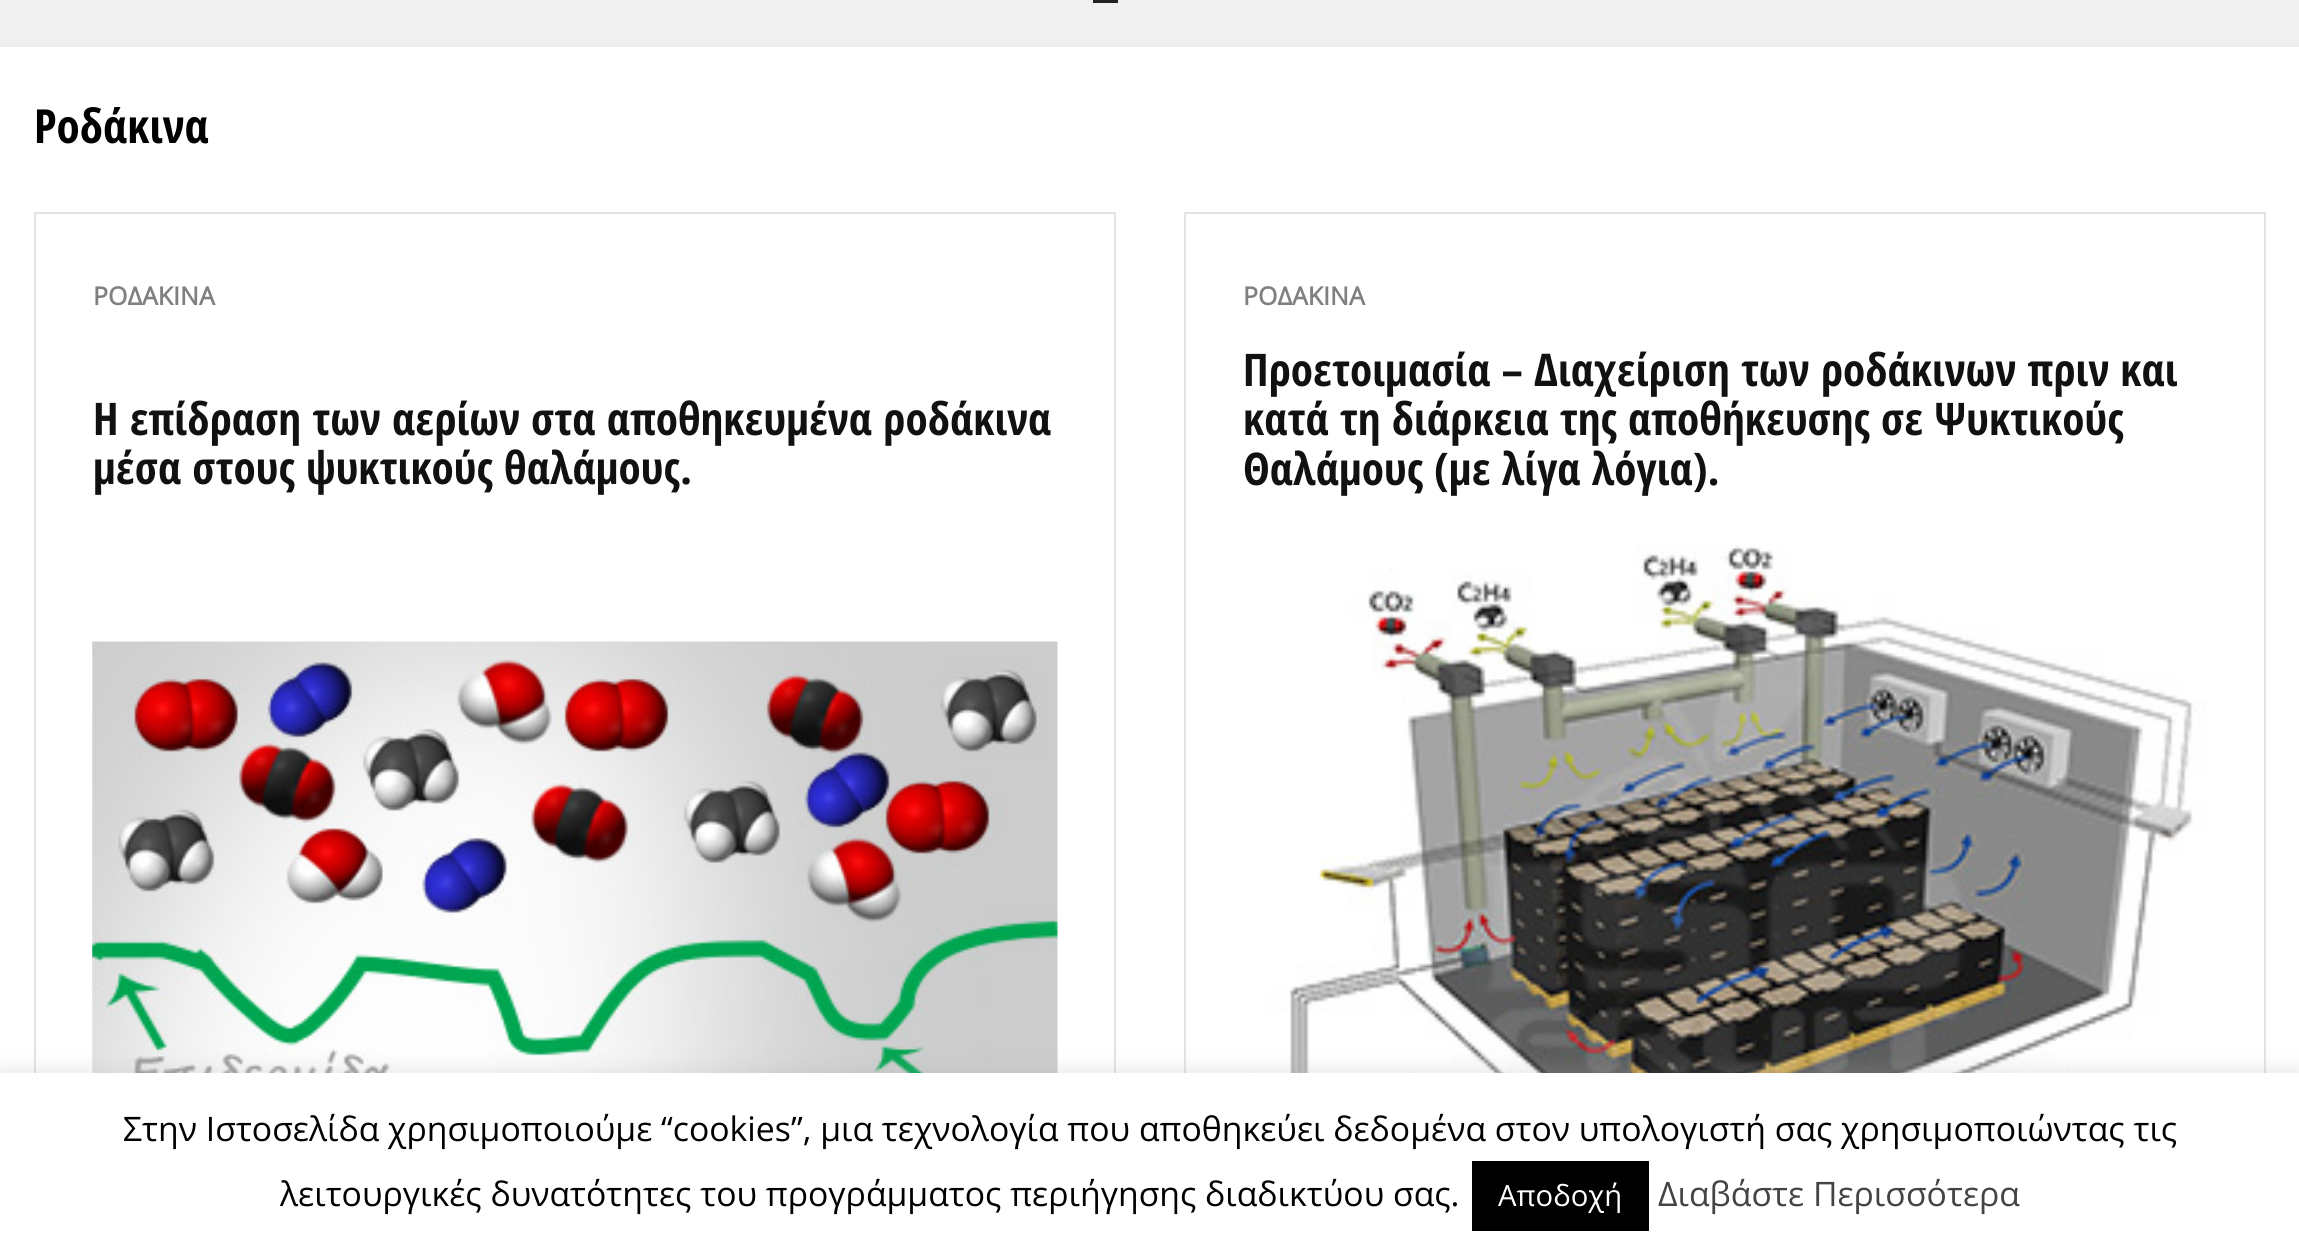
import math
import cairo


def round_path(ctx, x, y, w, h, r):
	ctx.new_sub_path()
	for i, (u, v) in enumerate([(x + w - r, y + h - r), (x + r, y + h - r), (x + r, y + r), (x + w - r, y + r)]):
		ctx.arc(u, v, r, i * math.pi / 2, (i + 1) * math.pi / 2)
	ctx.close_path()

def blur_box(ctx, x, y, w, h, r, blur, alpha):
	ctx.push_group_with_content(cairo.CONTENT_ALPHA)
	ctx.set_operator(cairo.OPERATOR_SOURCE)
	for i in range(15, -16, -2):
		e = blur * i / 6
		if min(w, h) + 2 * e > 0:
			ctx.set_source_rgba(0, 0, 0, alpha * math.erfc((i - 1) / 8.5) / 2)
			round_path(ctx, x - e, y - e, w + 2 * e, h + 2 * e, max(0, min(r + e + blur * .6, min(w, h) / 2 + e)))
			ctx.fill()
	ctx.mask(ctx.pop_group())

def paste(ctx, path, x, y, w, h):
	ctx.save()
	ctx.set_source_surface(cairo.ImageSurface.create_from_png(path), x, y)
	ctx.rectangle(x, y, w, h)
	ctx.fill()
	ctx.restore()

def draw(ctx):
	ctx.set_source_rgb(1, 1, 1)
	ctx.paint()
	ctx.set_source_rgb(0.933, 0.933, 0.933)
	ctx.rectangle(0, 43, 2299, 4)
	ctx.fill()
	ctx.set_source_rgb(0.941, 0.941, 0.941)
	ctx.rectangle(0, 0, 2299, 43)
	ctx.fill()
	ctx.set_source_rgb(0.133, 0.133, 0.133)
	ctx.rectangle(1093, 0, 25, 3)
	ctx.fill()
	ctx.select_font_face('Open Sans Condensed', cairo.FONT_SLANT_NORMAL, cairo.FONT_WEIGHT_BOLD)
	ctx.set_font_size(47)
	ctx.set_source_rgb(0, 0, 0)
	ctx.move_to(34, 143)
	ctx.show_text('Ροδάκινα')
	ctx.rectangle(35, 213, 1080, 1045)
	ctx.set_source_rgb(0.89, 0.89, 0.89)
	ctx.stroke()
	ctx.select_font_face('Open Sans', cairo.FONT_SLANT_NORMAL, cairo.FONT_WEIGHT_BOLD)
	ctx.set_font_size(25)
	ctx.set_source_rgb(0.502, 0.502, 0.502)
	ctx.move_to(93, 305)
	ctx.show_text('ΡΟΔΑΚΙΝΑ')
	ctx.select_font_face('Open Sans Condensed', cairo.FONT_SLANT_NORMAL, cairo.FONT_WEIGHT_BOLD)
	ctx.set_font_size(45)
	ctx.set_source_rgb(0.067, 0.067, 0.067)
	ctx.move_to(93, 435)
	ctx.show_text('Η επίδραση των αερίων στα αποθηκευμένα ροδάκινα')
	ctx.move_to(93, 484)
	ctx.show_text('μέσα στους ψυκτικούς θαλάμους.')
	paste(ctx, 'media/1.png', 92, 641, 966, 432)
	ctx.rectangle(1185, 213, 1080, 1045)
	ctx.set_source_rgb(0.89, 0.89, 0.89)
	ctx.stroke()
	ctx.select_font_face('Open Sans', cairo.FONT_SLANT_NORMAL, cairo.FONT_WEIGHT_BOLD)
	ctx.set_font_size(25)
	ctx.set_source_rgb(0.502, 0.502, 0.502)
	ctx.move_to(1243, 305)
	ctx.show_text('ΡΟΔΑΚΙΝΑ')
	ctx.select_font_face('Open Sans Condensed', cairo.FONT_SLANT_NORMAL, cairo.FONT_WEIGHT_BOLD)
	ctx.set_font_size(45)
	ctx.set_source_rgb(0.067, 0.067, 0.067)
	for x, y, s in [
		(1243, 386, 'Προετοιμασία – Διαχείριση των ροδάκινων πριν και'),
		(1243, 435, 'κατά τη διάρκεια της αποθήκευσης σε Ψυκτικούς'),
		(1243, 485, 'Θαλάμους (με λίγα λόγια).'),
	]:
		ctx.move_to(x, y)
		ctx.show_text(s)
	paste(ctx, 'media/2.png', 1242, 545, 965, 528)
	ctx.set_source_rgb(0.675, 0.671, 0.671)
	blur_box(ctx, 0, 1071, 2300, 185, 0, 11, 0.3)
	ctx.set_source_rgb(1, 1, 1)
	ctx.rectangle(0, 1073, 2299, 184)
	ctx.fill()
	ctx.select_font_face('Open Sans')
	ctx.set_font_size(33.75)
	ctx.set_source_rgb(0, 0, 0)
	ctx.move_to(123, 1141)
	ctx.show_text('Στην Ιστοσελίδα χρησιμοποιούμε “cookies”, μια τεχνολογία που αποθηκεύει δεδομένα στον υπολογιστή σας χρησιμοποιώντας τις')
	ctx.move_to(280, 1206)
	ctx.show_text('λειτουργικές δυνατότητες του προγράμματος περιήγησης διαδικτύου σας.')
	ctx.rectangle(1472, 1161, 177, 70)
	ctx.fill()
	ctx.set_font_size(29.25)
	ctx.set_source_rgb(1, 1, 1)
	ctx.move_to(1498, 1206)
	ctx.show_text('Αποδοχή')
	ctx.set_font_size(33.75)
	ctx.set_source_rgb(0.267, 0.267, 0.267)
	ctx.move_to(1658, 1206)
	ctx.show_text('Διαβάστε Περισσότερα')


surface = cairo.ImageSurface(cairo.FORMAT_RGB24, 2299, 1257)
ctx = cairo.Context(surface)
options = cairo.FontOptions()
options.set_hint_metrics(cairo.HINT_METRICS_OFF)
options.set_hint_style(cairo.HINT_STYLE_NONE)
ctx.set_font_options(options)
ctx.set_miter_limit(4)
draw(ctx)
surface.write_to_png('image.png')
